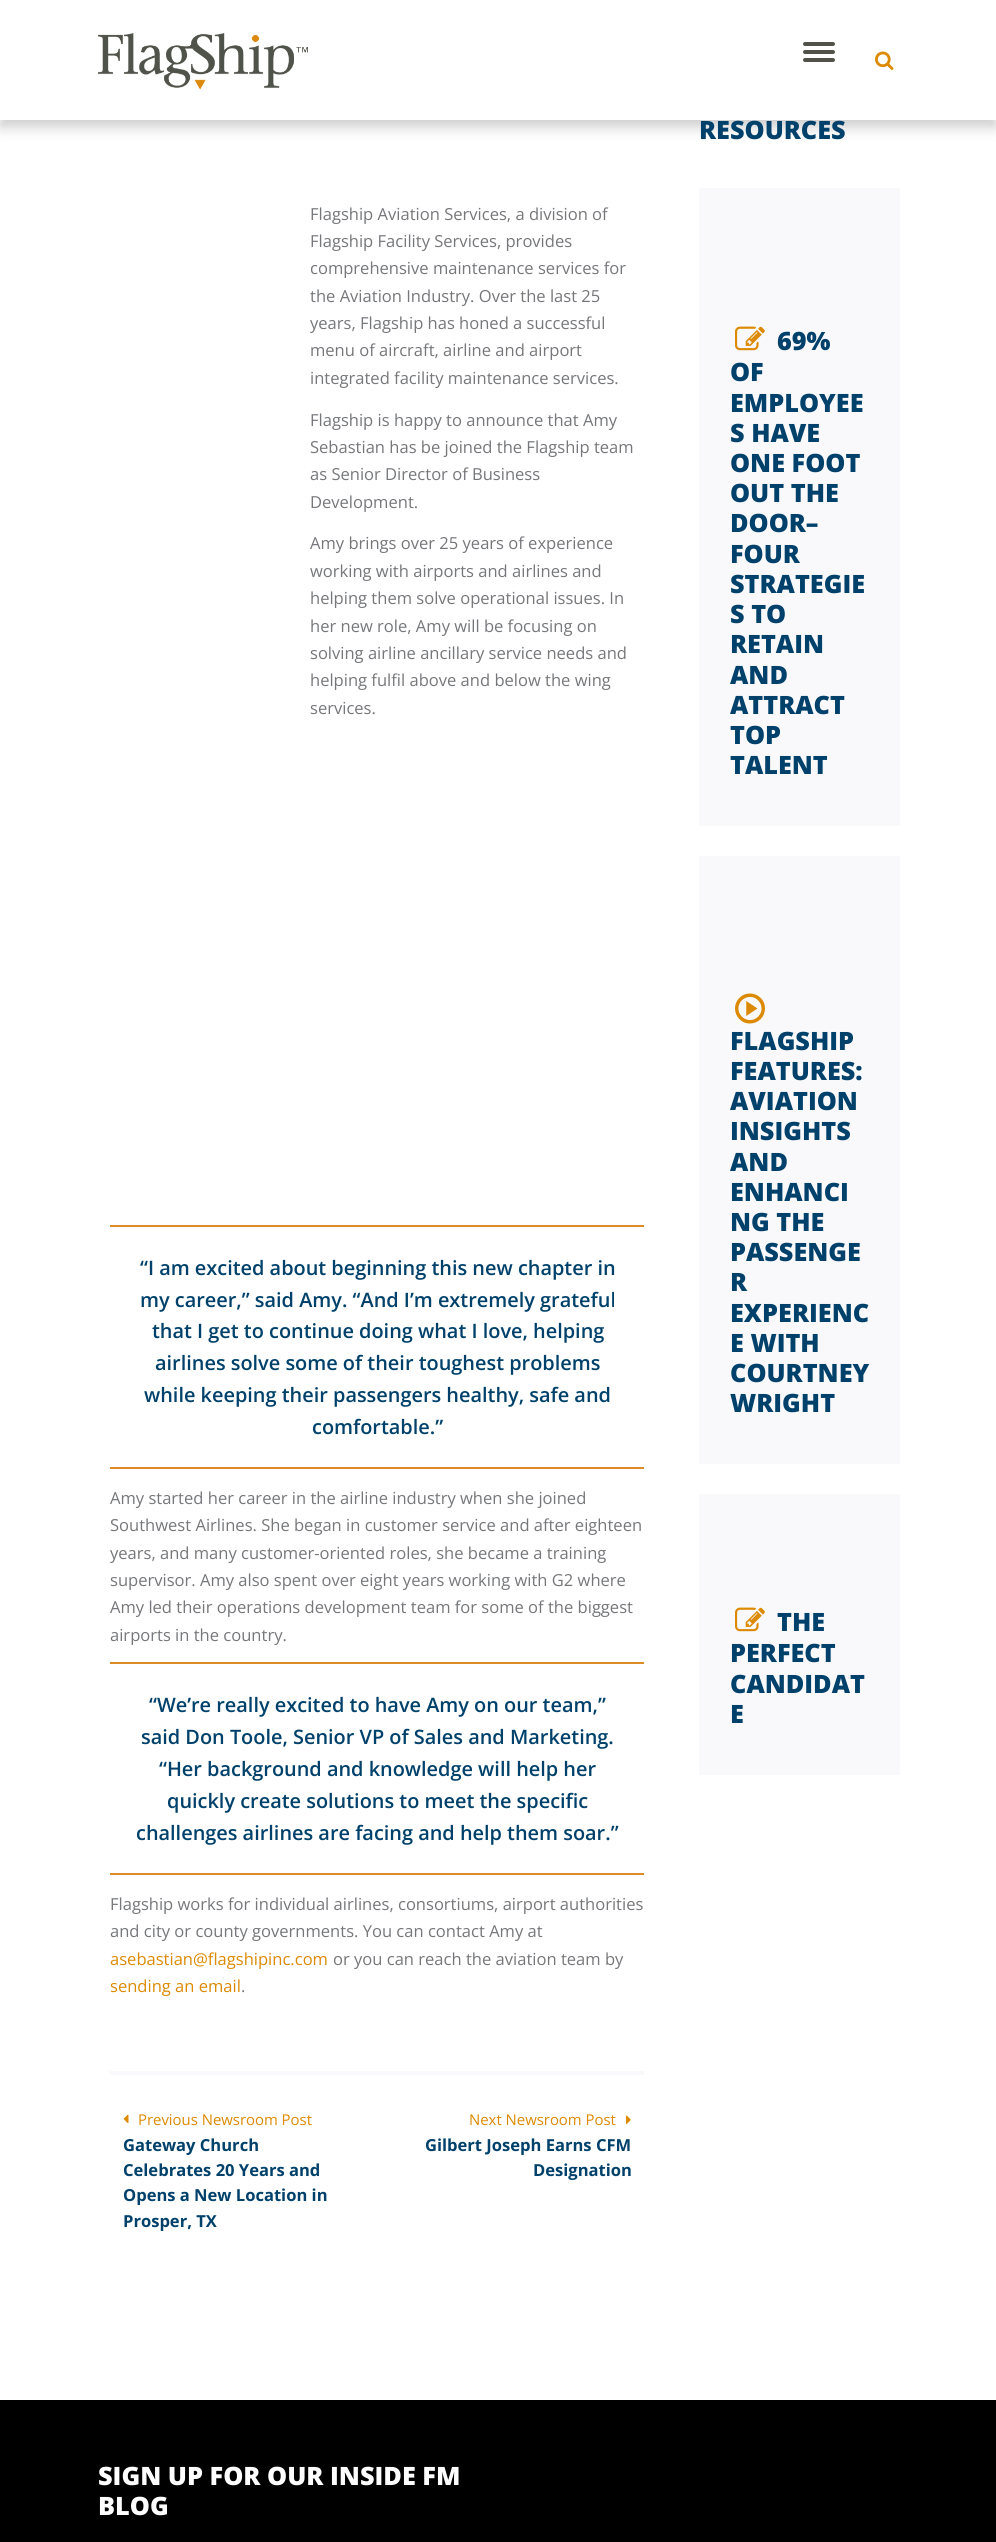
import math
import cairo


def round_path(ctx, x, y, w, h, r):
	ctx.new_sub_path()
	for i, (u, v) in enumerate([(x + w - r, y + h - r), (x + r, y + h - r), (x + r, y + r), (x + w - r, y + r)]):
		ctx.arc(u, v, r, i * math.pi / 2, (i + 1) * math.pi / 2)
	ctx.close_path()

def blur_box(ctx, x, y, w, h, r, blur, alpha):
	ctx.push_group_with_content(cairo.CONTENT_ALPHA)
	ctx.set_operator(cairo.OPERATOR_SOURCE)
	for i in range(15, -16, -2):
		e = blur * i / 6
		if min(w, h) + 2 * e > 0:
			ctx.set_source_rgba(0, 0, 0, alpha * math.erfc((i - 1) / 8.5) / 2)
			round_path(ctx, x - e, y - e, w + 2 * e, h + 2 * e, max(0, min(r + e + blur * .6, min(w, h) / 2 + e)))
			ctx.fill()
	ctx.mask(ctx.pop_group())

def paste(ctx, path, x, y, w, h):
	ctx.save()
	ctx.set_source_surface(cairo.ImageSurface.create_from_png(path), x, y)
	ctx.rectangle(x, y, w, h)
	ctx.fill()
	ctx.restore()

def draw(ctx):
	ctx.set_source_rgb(1, 1, 1)
	ctx.paint()
	ctx.set_source_rgb(0, 0, 0)
	blur_box(ctx, 0, 7, 996, 120, 0, 7, 0.2)
	ctx.set_source_rgb(1, 1, 1)
	ctx.rectangle(0, 0, 996, 120)
	ctx.fill()
	paste(ctx, 'media/1.png', 98, 33, 210, 57)
	ctx.set_source_rgb(0.322, 0.322, 0.29)
	round_path(ctx, 803, 42, 32, 4, 2)
	ctx.fill()
	round_path(ctx, 803, 50, 32, 4, 2)
	ctx.fill()
	round_path(ctx, 803, 58, 32, 4, 2)
	ctx.fill()
	paste(ctx, 'media/2.png', 875, 51, 19, 19)
	ctx.select_font_face('Open Sans')
	ctx.set_font_size(16.55)
	ctx.set_source_rgb(0.463, 0.467, 0.478)
	for x, y, s in [
		(310, 220, 'Flagship Aviation Services, a division of'),
		(310, 247, 'Flagship Facility Services, provides'),
		(310, 274, 'comprehensive maintenance services for'),
		(310, 302, 'the Aviation Industry. Over the last 25'),
		(310, 329, 'years, Flagship has honed a successful'),
		(310, 356, 'menu of aircraft, airline and airport'),
		(310, 384, 'integrated facility maintenance services.'),
		(310, 426, 'Flagship is happy to announce that Amy'),
		(310, 453, 'Sebastian has be joined the Flagship team'),
		(310, 480, 'as Senior Director of Business'),
		(310, 508, 'Development.'),
		(310, 549, 'Amy brings over 25 years of experience'),
		(310, 577, 'working with airports and airlines and'),
		(310, 604, 'helping them solve operational issues. In'),
		(310, 632, 'her new role, Amy will be focusing on'),
		(310, 659, 'solving airline ancillary service needs and'),
		(310, 686, 'helping fulfil above and below the wing'),
		(310, 714, 'services.'),
	]:
		ctx.move_to(x, y)
		ctx.show_text(s)
	ctx.set_source_rgb(0.867, 0.545, 0.153)
	ctx.rectangle(110, 1225, 534, 2)
	ctx.fill()
	ctx.rectangle(110, 1467, 534, 2)
	ctx.fill()
	ctx.select_font_face('Open Sans SemiBold')
	ctx.set_font_size(19.9)
	ctx.set_source_rgb(0, 0.255, 0.42)
	for x, y, s in [
		(140, 1275, '“I am excited about beginning this new chapter in'),
		(140, 1307, 'my career,” said Amy. “And I’m extremely grateful'),
		(152, 1338, 'that I get to continue doing what I love, helping'),
		(155, 1370, 'airlines solve some of their toughest problems'),
		(144, 1402, 'while keeping their passengers healthy, safe and'),
		(312, 1434, 'comfortable.”'),
	]:
		ctx.move_to(x, y)
		ctx.show_text(s)
	ctx.select_font_face('Open Sans')
	ctx.set_font_size(16.55)
	ctx.set_source_rgb(0.463, 0.467, 0.478)
	for x, y, s in [
		(110, 1504, 'Amy started her career in the airline industry when she joined'),
		(110, 1531, 'Southwest Airlines. She began in customer service and after eighteen'),
		(110, 1559, 'years, and many customer-oriented roles, she became a training'),
		(110, 1586, 'supervisor. Amy also spent over eight years working with G2 where'),
		(110, 1613, 'Amy led their operations development team for some of the biggest'),
		(110, 1641, 'airports in the country.'),
	]:
		ctx.move_to(x, y)
		ctx.show_text(s)
	ctx.set_source_rgb(0.867, 0.545, 0.153)
	ctx.rectangle(110, 1662, 534, 2)
	ctx.fill()
	ctx.rectangle(110, 1873, 534, 2)
	ctx.fill()
	ctx.select_font_face('Open Sans SemiBold')
	ctx.set_font_size(19.9)
	ctx.set_source_rgb(0, 0.255, 0.42)
	for x, y, s in [
		(149, 1712, '“We’re really excited to have Amy on our team,”'),
		(141, 1744, 'said Don Toole, Senior VP of Sales and Marketing.'),
		(159, 1776, '“Her background and knowledge will help her'),
		(167, 1808, 'quickly create solutions to meet the specific'),
		(136, 1840, 'challenges airlines are facing and help them soar.”'),
	]:
		ctx.move_to(x, y)
		ctx.show_text(s)
	ctx.select_font_face('Open Sans')
	ctx.set_font_size(16.55)
	ctx.set_source_rgb(0.463, 0.467, 0.478)
	ctx.move_to(110, 1910)
	ctx.show_text('Flagship works for individual airlines, consortiums, airport authorities')
	ctx.move_to(110, 1937)
	ctx.show_text('and city or county governments. You can contact Amy at')
	ctx.set_source_rgb(0.867, 0.541, 0.012)
	ctx.move_to(110, 1965)
	ctx.show_text('asebastian@flagshipinc.com')
	ctx.set_source_rgb(0.463, 0.467, 0.478)
	ctx.move_to(333, 1965)
	ctx.show_text('or you can reach the aviation team by')
	ctx.set_source_rgb(0.867, 0.541, 0.012)
	ctx.move_to(110, 1992)
	ctx.show_text('sending an email')
	ctx.set_source_rgb(0.463, 0.467, 0.478)
	ctx.move_to(241, 1992)
	ctx.show_text('.')
	ctx.set_source_rgb(0.973, 0.976, 0.984)
	ctx.rectangle(110, 2071, 534, 4)
	ctx.fill()
	paste(ctx, 'media/3.png', 123, 2114, 6, 10)
	ctx.set_font_size(14.9)
	ctx.set_source_rgb(0.867, 0.541, 0.012)
	ctx.move_to(138, 2125)
	ctx.show_text('Previous Newsroom Post')
	ctx.select_font_face('Open Sans', cairo.FONT_SLANT_NORMAL, cairo.FONT_WEIGHT_BOLD)
	ctx.set_font_size(16.55)
	ctx.set_source_rgb(0, 0.255, 0.42)
	for x, y, s in [
		(123, 2151, 'Gateway Church'),
		(123, 2176, 'Celebrates 20 Years and'),
		(123, 2201, 'Opens a New Location in'),
		(123, 2227, 'Prosper, TX'),
	]:
		ctx.move_to(x, y)
		ctx.show_text(s)
	ctx.select_font_face('Open Sans')
	ctx.set_font_size(14.9)
	ctx.set_source_rgb(0.867, 0.541, 0.012)
	ctx.move_to(469, 2125)
	ctx.show_text('Next Newsroom Post')
	paste(ctx, 'media/4.png', 626, 2115, 5, 9)
	ctx.select_font_face('Open Sans', cairo.FONT_SLANT_NORMAL, cairo.FONT_WEIGHT_BOLD)
	ctx.set_font_size(16.55)
	ctx.set_source_rgb(0, 0.255, 0.42)
	ctx.move_to(425, 2151)
	ctx.show_text('Gilbert Joseph Earns CFM')
	ctx.move_to(533, 2176)
	ctx.show_text('Designation')
	ctx.select_font_face('Open Sans ExtraBold')
	ctx.set_font_size(25.25)
	ctx.move_to(699, 139)
	ctx.show_text('RESOURCES')
	ctx.set_source_rgb(0.973, 0.976, 0.984)
	ctx.rectangle(700, 189, 199, 635)
	ctx.rectangle(699, 188, 201, 1)
	ctx.rectangle(899, 188, 1, 638)
	ctx.rectangle(699, 824, 201, 2)
	ctx.rectangle(699, 188, 1, 638)
	ctx.fill()
	paste(ctx, 'media/5.png', 735, 326, 30, 25)
	ctx.set_source_rgb(0, 0.255, 0.42)
	for x, y, s in [
		(777, 350, '69%'),
		(730, 381, 'OF'),
		(730, 412, 'EMPLOYEE'),
		(730, 442, 'S HAVE'),
		(730, 472, 'ONE FOOT'),
		(730, 502, 'OUT THE'),
		(730, 532, 'DOOR–'),
		(730, 563, 'FOUR'),
		(730, 593, 'STRATEGIE'),
		(730, 623, 'S TO'),
		(730, 653, 'RETAIN'),
		(730, 684, 'AND'),
		(730, 714, 'ATTRACT'),
		(730, 744, 'TOP'),
		(730, 774, 'TALENT'),
	]:
		ctx.move_to(x, y)
		ctx.show_text(s)
	ctx.set_source_rgb(0.973, 0.976, 0.984)
	ctx.rectangle(700, 857, 199, 605)
	ctx.rectangle(699, 856, 201, 1)
	ctx.rectangle(899, 856, 1, 608)
	ctx.rectangle(699, 1462, 201, 2)
	ctx.rectangle(699, 856, 1, 608)
	ctx.fill()
	paste(ctx, 'media/6.png', 735, 993, 30, 31)
	ctx.set_source_rgb(0, 0.255, 0.42)
	for x, y, s in [
		(730, 1050, 'FLAGSHIP'),
		(730, 1080, 'FEATURES:'),
		(730, 1110, 'AVIATION'),
		(730, 1140, 'INSIGHTS'),
		(730, 1171, 'AND'),
		(730, 1201, 'ENHANCI'),
		(730, 1231, 'NG THE'),
		(730, 1261, 'PASSENGE'),
		(730, 1291, 'R'),
		(730, 1322, 'EXPERIENC'),
		(730, 1352, 'E WITH'),
		(730, 1382, 'COURTNEY'),
		(730, 1412, 'WRIGHT'),
	]:
		ctx.move_to(x, y)
		ctx.show_text(s)
	ctx.set_source_rgb(0.973, 0.976, 0.984)
	ctx.rectangle(700, 1495, 199, 278)
	ctx.rectangle(699, 1494, 201, 1)
	ctx.rectangle(899, 1494, 1, 281)
	ctx.rectangle(699, 1773, 201, 2)
	ctx.rectangle(699, 1494, 1, 281)
	ctx.fill()
	paste(ctx, 'media/5.png', 735, 1607, 30, 25)
	ctx.set_source_rgb(0, 0.255, 0.42)
	for x, y, s in [
		(777, 1631, 'THE'),
		(730, 1662, 'PERFECT'),
		(730, 1693, 'CANDIDAT'),
		(730, 1723, 'E'),
	]:
		ctx.move_to(x, y)
		ctx.show_text(s)
	ctx.set_source_rgb(0, 0, 0)
	ctx.rectangle(0, 2400, 996, 142)
	ctx.fill()
	ctx.set_font_size(25.3)
	ctx.set_source_rgb(1, 1, 1)
	ctx.move_to(98, 2485)
	ctx.show_text('SIGN UP FOR OUR INSIDE FM')
	ctx.move_to(98, 2515)
	ctx.show_text('BLOG')


surface = cairo.ImageSurface(cairo.FORMAT_RGB24, 996, 2542)
ctx = cairo.Context(surface)
options = cairo.FontOptions()
options.set_hint_metrics(cairo.HINT_METRICS_OFF)
options.set_hint_style(cairo.HINT_STYLE_NONE)
ctx.set_font_options(options)
ctx.set_miter_limit(4)
draw(ctx)
surface.write_to_png('image.png')
